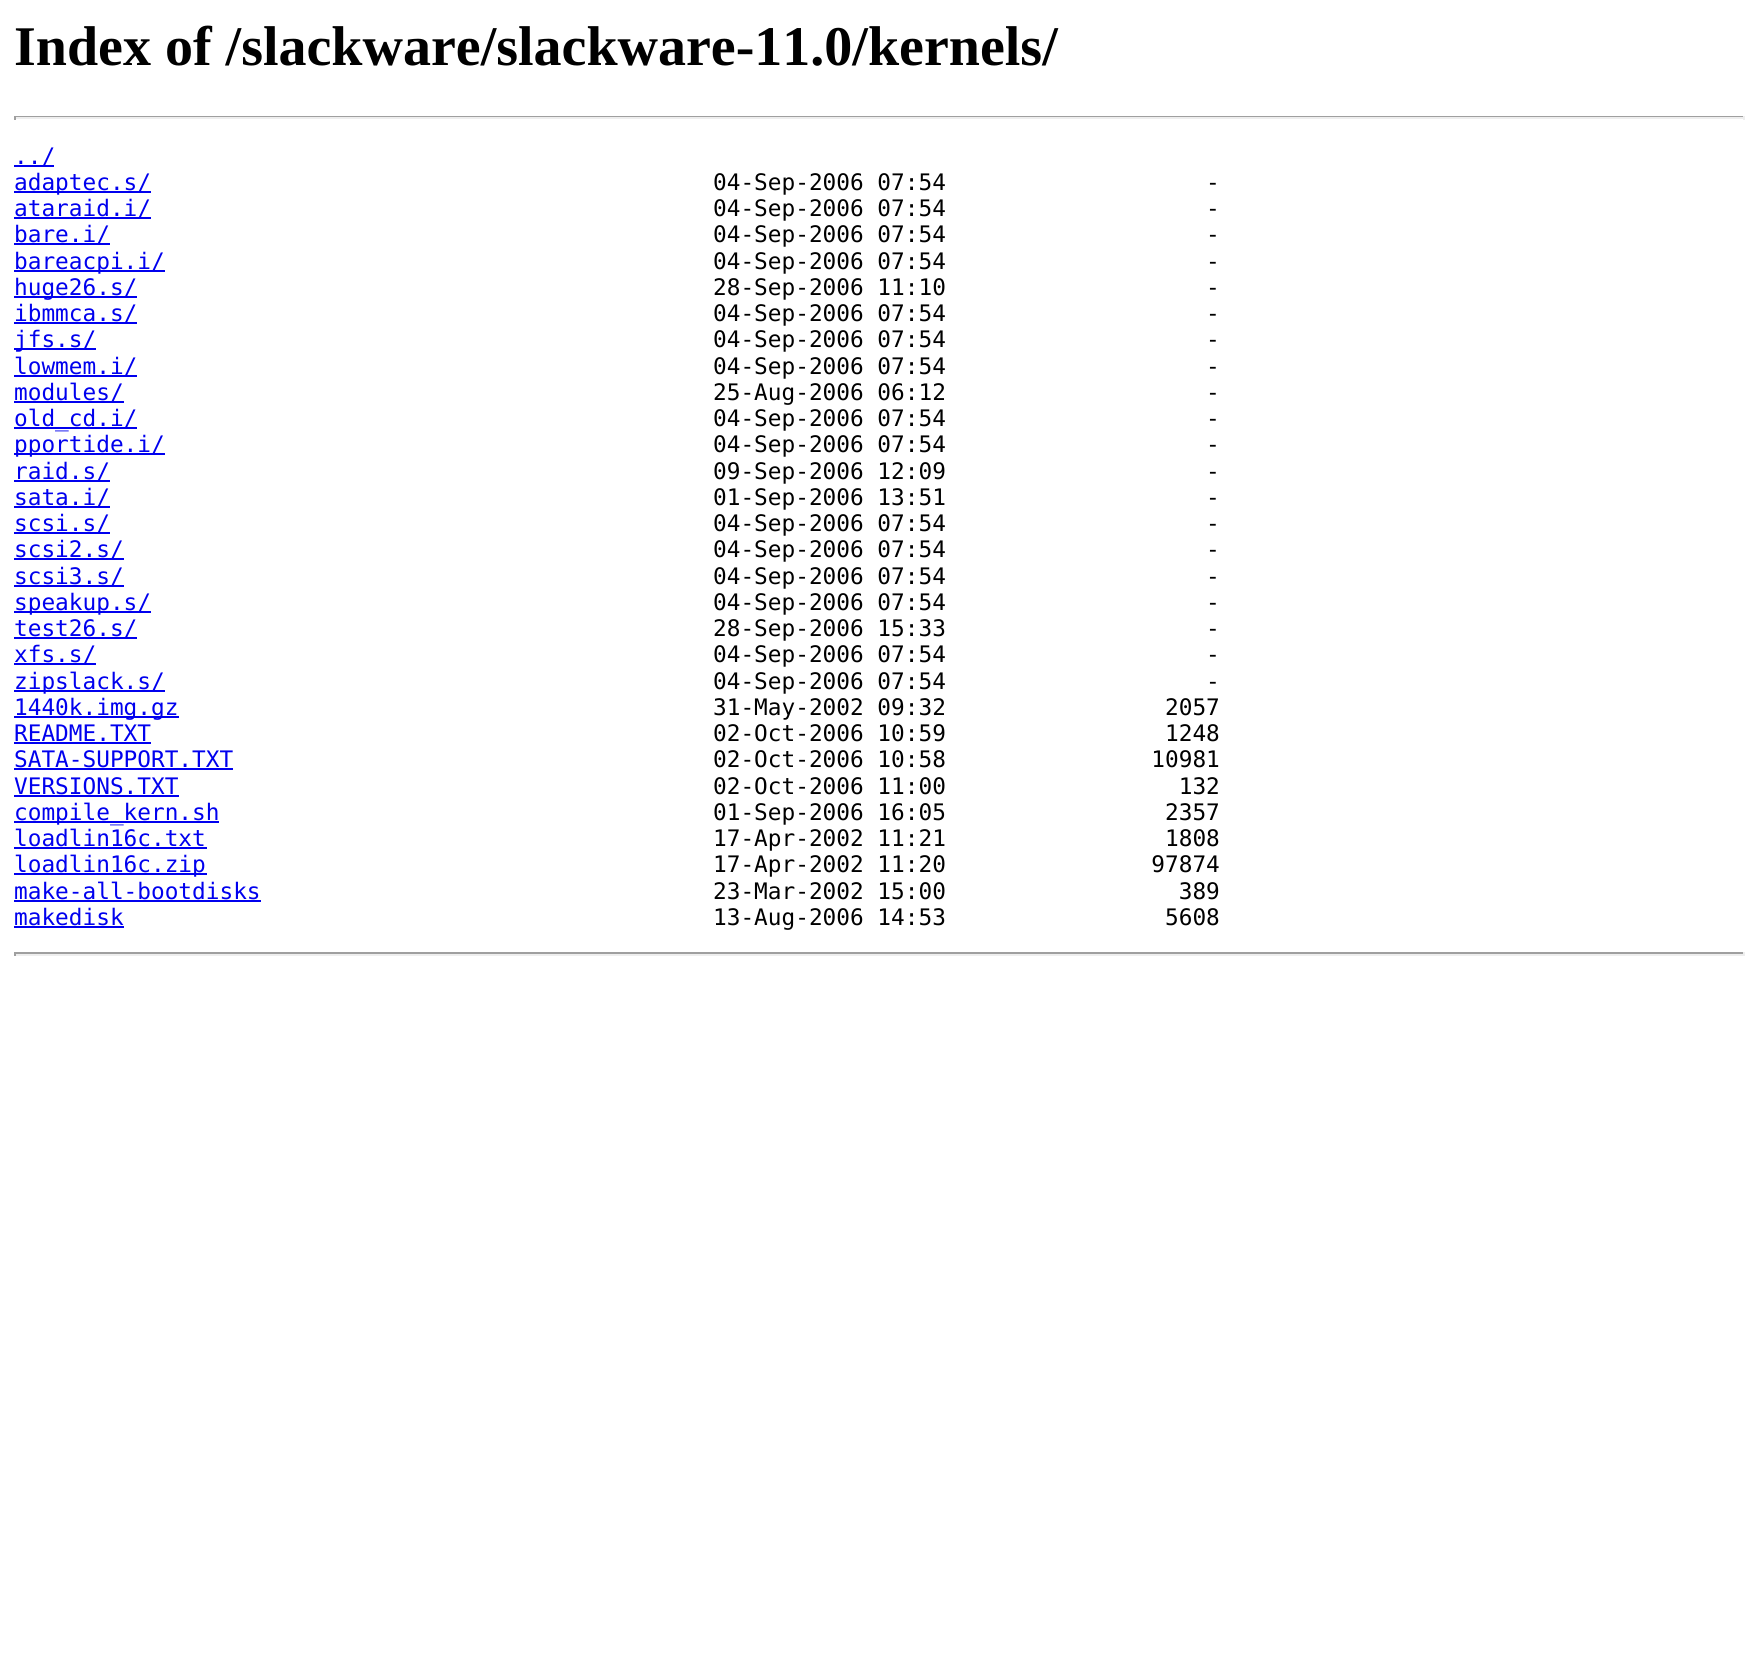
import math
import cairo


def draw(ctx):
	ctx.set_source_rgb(1, 1, 1)
	ctx.paint()
	ctx.select_font_face('Liberation Serif', cairo.FONT_SLANT_NORMAL, cairo.FONT_WEIGHT_BOLD)
	ctx.set_font_size(56)
	ctx.set_source_rgb(0, 0, 0)
	ctx.move_to(14, 65)
	ctx.show_text('Index of /slackware/slackware-11.0/kernels/')
	ctx.set_source_rgb(0.624, 0.624, 0.624)
	ctx.rectangle(14, 116, 1731, 1)
	ctx.fill()
	ctx.set_source_rgb(0.933, 0.933, 0.933)
	ctx.rectangle(1743, 116, 2, 4)
	ctx.rectangle(14, 117, 1731, 2)
	ctx.fill()
	ctx.set_source_rgb(0.624, 0.624, 0.624)
	ctx.rectangle(14, 116, 2, 4)
	ctx.fill()
	ctx.set_source_rgb(0, 0, 0.933)
	ctx.rectangle(14, 165, 40, 2)
	ctx.fill()
	ctx.select_font_face('DejaVu Sans Mono')
	ctx.set_font_size(22.75)
	ctx.move_to(14, 164)
	ctx.show_text('../')
	ctx.rectangle(14, 191, 137, 2)
	ctx.fill()
	ctx.move_to(14, 190)
	ctx.show_text('adaptec.s/')
	ctx.set_source_rgb(0, 0, 0)
	ctx.move_to(713, 190)
	ctx.show_text('04-Sep-2006 07:54                   -')
	ctx.set_source_rgb(0, 0, 0.933)
	ctx.rectangle(14, 217, 137, 2)
	ctx.fill()
	ctx.move_to(14, 216)
	ctx.show_text('ataraid.i/')
	ctx.set_source_rgb(0, 0, 0)
	ctx.move_to(713, 216)
	ctx.show_text('04-Sep-2006 07:54                   -')
	ctx.set_source_rgb(0, 0, 0.933)
	ctx.rectangle(14, 243, 96, 2)
	ctx.fill()
	ctx.move_to(14, 242)
	ctx.show_text('bare.i/')
	ctx.set_source_rgb(0, 0, 0)
	ctx.move_to(713, 242)
	ctx.show_text('04-Sep-2006 07:54                   -')
	ctx.set_source_rgb(0, 0, 0.933)
	ctx.rectangle(14, 270, 151, 2)
	ctx.fill()
	ctx.move_to(14, 269)
	ctx.show_text('bareacpi.i/')
	ctx.set_source_rgb(0, 0, 0)
	ctx.move_to(713, 269)
	ctx.show_text('04-Sep-2006 07:54                   -')
	ctx.set_source_rgb(0, 0, 0.933)
	ctx.rectangle(14, 296, 123, 2)
	ctx.fill()
	ctx.move_to(14, 295)
	ctx.show_text('huge26.s/')
	ctx.set_source_rgb(0, 0, 0)
	ctx.move_to(713, 295)
	ctx.show_text('28-Sep-2006 11:10                   -')
	ctx.set_source_rgb(0, 0, 0.933)
	ctx.rectangle(14, 322, 123, 2)
	ctx.fill()
	ctx.move_to(14, 321)
	ctx.show_text('ibmmca.s/')
	ctx.set_source_rgb(0, 0, 0)
	ctx.move_to(713, 321)
	ctx.show_text('04-Sep-2006 07:54                   -')
	ctx.set_source_rgb(0, 0, 0.933)
	ctx.rectangle(14, 348, 82, 2)
	ctx.fill()
	ctx.move_to(14, 347)
	ctx.show_text('jfs.s/')
	ctx.set_source_rgb(0, 0, 0)
	ctx.move_to(713, 347)
	ctx.show_text('04-Sep-2006 07:54                   -')
	ctx.set_source_rgb(0, 0, 0.933)
	ctx.rectangle(14, 375, 123, 2)
	ctx.fill()
	ctx.move_to(14, 374)
	ctx.show_text('lowmem.i/')
	ctx.set_source_rgb(0, 0, 0)
	ctx.move_to(713, 374)
	ctx.show_text('04-Sep-2006 07:54                   -')
	ctx.set_source_rgb(0, 0, 0.933)
	ctx.rectangle(14, 401, 110, 2)
	ctx.fill()
	ctx.move_to(14, 400)
	ctx.show_text('modules/')
	ctx.set_source_rgb(0, 0, 0)
	ctx.move_to(713, 400)
	ctx.show_text('25-Aug-2006 06:12                   -')
	ctx.set_source_rgb(0, 0, 0.933)
	ctx.rectangle(14, 427, 123, 2)
	ctx.fill()
	ctx.move_to(14, 426)
	ctx.show_text('old_cd.i/')
	ctx.set_source_rgb(0, 0, 0)
	ctx.move_to(713, 426)
	ctx.show_text('04-Sep-2006 07:54                   -')
	ctx.set_source_rgb(0, 0, 0.933)
	ctx.rectangle(14, 453, 151, 2)
	ctx.fill()
	ctx.move_to(14, 452)
	ctx.show_text('pportide.i/')
	ctx.set_source_rgb(0, 0, 0)
	ctx.move_to(713, 452)
	ctx.show_text('04-Sep-2006 07:54                   -')
	ctx.set_source_rgb(0, 0, 0.933)
	ctx.rectangle(14, 480, 96, 2)
	ctx.fill()
	ctx.move_to(14, 479)
	ctx.show_text('raid.s/')
	ctx.set_source_rgb(0, 0, 0)
	ctx.move_to(713, 479)
	ctx.show_text('09-Sep-2006 12:09                   -')
	ctx.set_source_rgb(0, 0, 0.933)
	ctx.rectangle(14, 506, 96, 2)
	ctx.fill()
	ctx.move_to(14, 505)
	ctx.show_text('sata.i/')
	ctx.set_source_rgb(0, 0, 0)
	ctx.move_to(713, 505)
	ctx.show_text('01-Sep-2006 13:51                   -')
	ctx.set_source_rgb(0, 0, 0.933)
	ctx.rectangle(14, 532, 96, 2)
	ctx.fill()
	ctx.move_to(14, 531)
	ctx.show_text('scsi.s/')
	ctx.set_source_rgb(0, 0, 0)
	ctx.move_to(713, 531)
	ctx.show_text('04-Sep-2006 07:54                   -')
	ctx.set_source_rgb(0, 0, 0.933)
	ctx.rectangle(14, 558, 110, 2)
	ctx.fill()
	ctx.move_to(14, 557)
	ctx.show_text('scsi2.s/')
	ctx.set_source_rgb(0, 0, 0)
	ctx.move_to(713, 557)
	ctx.show_text('04-Sep-2006 07:54                   -')
	ctx.set_source_rgb(0, 0, 0.933)
	ctx.rectangle(14, 585, 110, 2)
	ctx.fill()
	ctx.move_to(14, 584)
	ctx.show_text('scsi3.s/')
	ctx.set_source_rgb(0, 0, 0)
	ctx.move_to(713, 584)
	ctx.show_text('04-Sep-2006 07:54                   -')
	ctx.set_source_rgb(0, 0, 0.933)
	ctx.rectangle(14, 611, 137, 2)
	ctx.fill()
	ctx.move_to(14, 610)
	ctx.show_text('speakup.s/')
	ctx.set_source_rgb(0, 0, 0)
	ctx.move_to(713, 610)
	ctx.show_text('04-Sep-2006 07:54                   -')
	ctx.set_source_rgb(0, 0, 0.933)
	ctx.rectangle(14, 637, 123, 2)
	ctx.fill()
	ctx.move_to(14, 636)
	ctx.show_text('test26.s/')
	ctx.set_source_rgb(0, 0, 0)
	ctx.move_to(713, 636)
	ctx.show_text('28-Sep-2006 15:33                   -')
	ctx.set_source_rgb(0, 0, 0.933)
	ctx.rectangle(14, 663, 82, 2)
	ctx.fill()
	ctx.move_to(14, 662)
	ctx.show_text('xfs.s/')
	ctx.set_source_rgb(0, 0, 0)
	ctx.move_to(713, 662)
	ctx.show_text('04-Sep-2006 07:54                   -')
	ctx.set_source_rgb(0, 0, 0.933)
	ctx.rectangle(14, 690, 151, 2)
	ctx.fill()
	ctx.move_to(14, 689)
	ctx.show_text('zipslack.s/')
	ctx.set_source_rgb(0, 0, 0)
	ctx.move_to(713, 689)
	ctx.show_text('04-Sep-2006 07:54                   -')
	ctx.set_source_rgb(0, 0, 0.933)
	ctx.rectangle(14, 716, 165, 2)
	ctx.fill()
	ctx.move_to(14, 715)
	ctx.show_text('1440k.img.gz')
	ctx.set_source_rgb(0, 0, 0)
	ctx.move_to(713, 715)
	ctx.show_text('31-May-2002 09:32                2057')
	ctx.set_source_rgb(0, 0, 0.933)
	ctx.move_to(14, 741)
	ctx.show_text('README.TXT')
	ctx.rectangle(14, 742, 137, 2)
	ctx.fill()
	ctx.set_source_rgb(0, 0, 0)
	ctx.move_to(713, 741)
	ctx.show_text('02-Oct-2006 10:59                1248')
	ctx.set_source_rgb(0, 0, 0.933)
	ctx.move_to(14, 767)
	ctx.show_text('SATA-SUPPORT.TXT')
	ctx.rectangle(14, 768, 219, 2)
	ctx.fill()
	ctx.set_source_rgb(0, 0, 0)
	ctx.move_to(713, 767)
	ctx.show_text('02-Oct-2006 10:58               10981')
	ctx.set_source_rgb(0, 0, 0.933)
	ctx.move_to(14, 794)
	ctx.show_text('VERSIONS.TXT')
	ctx.rectangle(14, 795, 165, 2)
	ctx.fill()
	ctx.set_source_rgb(0, 0, 0)
	ctx.move_to(713, 794)
	ctx.show_text('02-Oct-2006 11:00                 132')
	ctx.set_source_rgb(0, 0, 0.933)
	ctx.rectangle(14, 821, 205, 2)
	ctx.fill()
	ctx.move_to(14, 820)
	ctx.show_text('compile_kern.sh')
	ctx.set_source_rgb(0, 0, 0)
	ctx.move_to(713, 820)
	ctx.show_text('01-Sep-2006 16:05                2357')
	ctx.set_source_rgb(0, 0, 0.933)
	ctx.move_to(14, 846)
	ctx.show_text('loadlin16c.txt')
	ctx.rectangle(14, 847, 193, 2)
	ctx.fill()
	ctx.set_source_rgb(0, 0, 0)
	ctx.move_to(713, 846)
	ctx.show_text('17-Apr-2002 11:21                1808')
	ctx.set_source_rgb(0, 0, 0.933)
	ctx.rectangle(14, 873, 193, 2)
	ctx.fill()
	ctx.move_to(14, 872)
	ctx.show_text('loadlin16c.zip')
	ctx.set_source_rgb(0, 0, 0)
	ctx.move_to(713, 872)
	ctx.show_text('17-Apr-2002 11:20               97874')
	ctx.set_source_rgb(0, 0, 0.933)
	ctx.move_to(14, 899)
	ctx.show_text('make-all-bootdisks')
	ctx.rectangle(14, 900, 247, 2)
	ctx.fill()
	ctx.set_source_rgb(0, 0, 0)
	ctx.move_to(713, 899)
	ctx.show_text('23-Mar-2002 15:00                 389')
	ctx.set_source_rgb(0, 0, 0.933)
	ctx.move_to(14, 925)
	ctx.show_text('makedisk')
	ctx.rectangle(14, 926, 110, 2)
	ctx.fill()
	ctx.set_source_rgb(0, 0, 0)
	ctx.move_to(713, 925)
	ctx.show_text('13-Aug-2006 14:53                5608')
	ctx.set_source_rgb(0.624, 0.624, 0.624)
	ctx.rectangle(14, 952, 1731, 2)
	ctx.fill()
	ctx.set_source_rgb(0.933, 0.933, 0.933)
	ctx.rectangle(1743, 952, 2, 4)
	ctx.rectangle(14, 954, 1731, 2)
	ctx.fill()
	ctx.set_source_rgb(0.624, 0.624, 0.624)
	ctx.rectangle(14, 952, 2, 4)
	ctx.fill()


surface = cairo.ImageSurface(cairo.FORMAT_RGB24, 1758, 1666)
ctx = cairo.Context(surface)
options = cairo.FontOptions()
options.set_hint_metrics(cairo.HINT_METRICS_OFF)
options.set_hint_style(cairo.HINT_STYLE_NONE)
ctx.set_font_options(options)
ctx.set_miter_limit(4)
draw(ctx)
surface.write_to_png('image.png')
